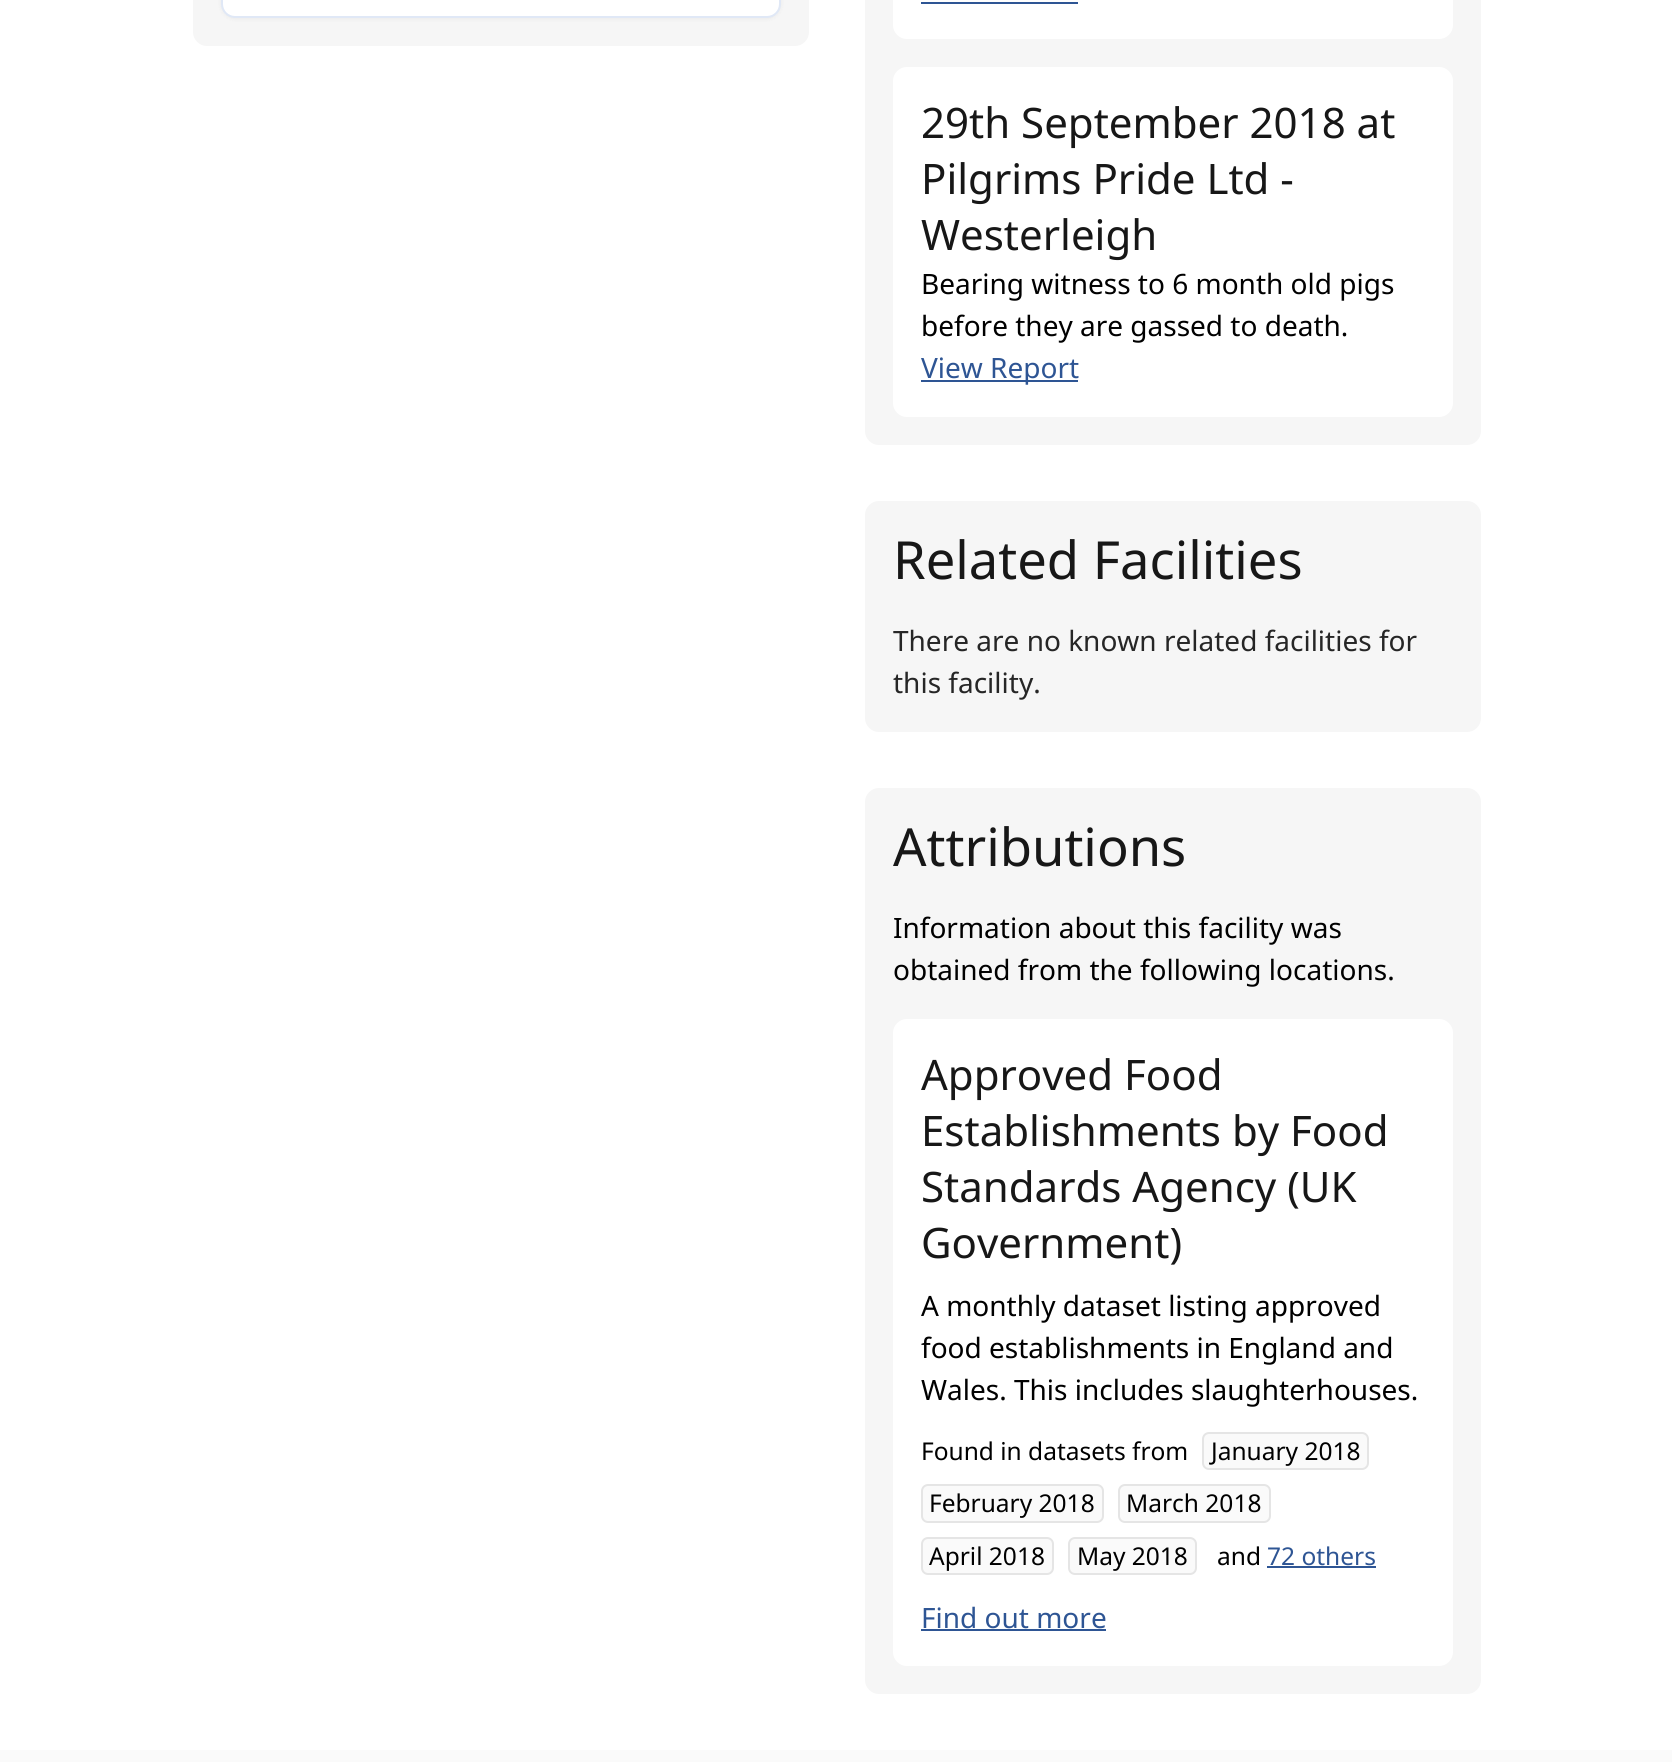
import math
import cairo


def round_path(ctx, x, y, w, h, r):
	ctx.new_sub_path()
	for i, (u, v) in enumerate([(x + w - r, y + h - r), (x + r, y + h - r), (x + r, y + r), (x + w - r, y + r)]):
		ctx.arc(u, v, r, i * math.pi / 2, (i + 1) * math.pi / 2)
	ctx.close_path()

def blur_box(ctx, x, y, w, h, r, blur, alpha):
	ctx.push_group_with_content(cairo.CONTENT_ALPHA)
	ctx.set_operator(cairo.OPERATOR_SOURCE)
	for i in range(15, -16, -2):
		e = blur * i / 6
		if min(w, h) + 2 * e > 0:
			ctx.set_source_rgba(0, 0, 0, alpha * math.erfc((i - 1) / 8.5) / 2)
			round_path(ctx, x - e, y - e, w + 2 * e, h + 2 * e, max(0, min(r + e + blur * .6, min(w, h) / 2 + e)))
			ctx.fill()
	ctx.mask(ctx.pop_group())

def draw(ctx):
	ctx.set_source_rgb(1, 1, 1)
	ctx.paint()
	ctx.set_source_rgb(0.961, 0.961, 0.961)
	round_path(ctx, 193, -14, 616, 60, 14)
	ctx.fill()
	ctx.set_source_rgb(0, 0, 0)
	blur_box(ctx, 221, -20, 560, 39, 14, 2, 0.05)
	ctx.set_source_rgb(1, 1, 1)
	round_path(ctx, 222, -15, 558, 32, 13)
	ctx.fill_preserve()
	ctx.set_source_rgb(0.878, 0.91, 0.961)
	ctx.stroke()
	ctx.set_source_rgb(0.961, 0.961, 0.961)
	round_path(ctx, 865, -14, 616, 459, 14)
	ctx.fill()
	ctx.set_source_rgb(1, 1, 1)
	round_path(ctx, 893, -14, 560, 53, 14)
	ctx.fill()
	ctx.set_source_rgb(0.18, 0.333, 0.58)
	ctx.rectangle(921, 2, 157, 2)
	ctx.fill()
	ctx.set_source_rgb(1, 1, 1)
	round_path(ctx, 893, 67, 560, 350, 14)
	ctx.fill()
	ctx.select_font_face('Noto Sans')
	ctx.set_font_size(42)
	ctx.set_source_rgb(0.09, 0.09, 0.09)
	for x, y, s in [
		(921, 138, '29th September 2018 at'),
		(921, 194, 'Pilgrims Pride Ltd -'),
		(921, 250, 'Westerleigh'),
	]:
		ctx.move_to(x, y)
		ctx.show_text(s)
	ctx.set_font_size(28)
	ctx.set_source_rgb(0, 0, 0)
	ctx.move_to(921, 294)
	ctx.show_text('Bearing witness to 6 month old pigs')
	ctx.move_to(921, 336)
	ctx.show_text('before they are gassed to death.')
	ctx.set_source_rgb(0.18, 0.333, 0.58)
	ctx.rectangle(921, 380, 157, 2)
	ctx.fill()
	ctx.move_to(921, 378)
	ctx.show_text('View Report')
	ctx.set_source_rgb(0.961, 0.961, 0.961)
	round_path(ctx, 865, 501, 616, 231, 14)
	ctx.fill()
	ctx.set_font_size(52.5)
	ctx.set_source_rgb(0.09, 0.09, 0.09)
	ctx.move_to(893, 579)
	ctx.show_text('Related Facilities')
	ctx.set_font_size(28)
	ctx.set_source_rgb(0.149, 0.149, 0.149)
	ctx.move_to(893, 651)
	ctx.show_text('There are no known related facilities for')
	ctx.move_to(893, 693)
	ctx.show_text('this facility.')
	ctx.set_source_rgb(0.961, 0.961, 0.961)
	round_path(ctx, 865, 788, 616, 906, 14)
	ctx.fill()
	ctx.set_font_size(52.5)
	ctx.set_source_rgb(0.09, 0.09, 0.09)
	ctx.move_to(893, 866)
	ctx.show_text('Attributions')
	ctx.set_font_size(28)
	ctx.set_source_rgb(0, 0, 0)
	ctx.move_to(893, 938)
	ctx.show_text('Information about this facility was')
	ctx.move_to(893, 980)
	ctx.show_text('obtained from the following locations.')
	ctx.set_source_rgb(1, 1, 1)
	round_path(ctx, 893, 1019, 560, 647, 14)
	ctx.fill()
	ctx.set_font_size(42)
	ctx.set_source_rgb(0.09, 0.09, 0.09)
	for x, y, s in [
		(921, 1090, 'Approved Food'),
		(921, 1146, 'Establishments by Food'),
		(921, 1202, 'Standards Agency (UK'),
		(921, 1258, 'Government)'),
	]:
		ctx.move_to(x, y)
		ctx.show_text(s)
	ctx.set_font_size(28)
	ctx.set_source_rgb(0, 0, 0)
	for x, y, s in [
		(921, 1316, 'A monthly dataset listing approved'),
		(921, 1358, 'food establishments in England and'),
		(921, 1400, 'Wales. This includes slaughterhouses.'),
	]:
		ctx.move_to(x, y)
		ctx.show_text(s)
	ctx.set_font_size(24.5)
	ctx.move_to(921, 1460)
	ctx.show_text('Found in datasets from')
	ctx.set_source_rgb(0.98, 0.98, 0.98)
	round_path(ctx, 1203, 1433, 165, 36, 6)
	ctx.fill_preserve()
	ctx.set_source_rgb(0.898, 0.898, 0.898)
	ctx.stroke()
	ctx.set_source_rgb(0, 0, 0)
	ctx.move_to(1211, 1460)
	ctx.show_text('January 2018')
	ctx.set_source_rgb(0.98, 0.98, 0.98)
	round_path(ctx, 922, 1485, 181, 37, 6)
	ctx.fill_preserve()
	ctx.set_source_rgb(0.898, 0.898, 0.898)
	ctx.stroke()
	ctx.set_source_rgb(0, 0, 0)
	ctx.move_to(929, 1512)
	ctx.show_text('February 2018')
	ctx.set_source_rgb(0.98, 0.98, 0.98)
	round_path(ctx, 1119, 1485, 151, 37, 6)
	ctx.fill_preserve()
	ctx.set_source_rgb(0.898, 0.898, 0.898)
	ctx.stroke()
	ctx.set_source_rgb(0, 0, 0)
	ctx.move_to(1126, 1512)
	ctx.show_text('March 2018')
	ctx.set_source_rgb(0.98, 0.98, 0.98)
	round_path(ctx, 922, 1538, 131, 36, 6)
	ctx.fill_preserve()
	ctx.set_source_rgb(0.898, 0.898, 0.898)
	ctx.stroke()
	ctx.set_source_rgb(0, 0, 0)
	ctx.move_to(929, 1565)
	ctx.show_text('April 2018')
	ctx.set_source_rgb(0.98, 0.98, 0.98)
	round_path(ctx, 1069, 1538, 127, 36, 6)
	ctx.fill_preserve()
	ctx.set_source_rgb(0.898, 0.898, 0.898)
	ctx.stroke()
	ctx.set_source_rgb(0, 0, 0)
	ctx.move_to(1077, 1565)
	ctx.show_text('May 2018')
	ctx.move_to(1217, 1565)
	ctx.show_text('and')
	ctx.set_source_rgb(0.18, 0.333, 0.58)
	ctx.move_to(1267, 1565)
	ctx.show_text('72 others')
	ctx.rectangle(1267, 1566, 109, 2)
	ctx.fill()
	ctx.set_font_size(28)
	ctx.move_to(921, 1628)
	ctx.show_text('Find out more')
	ctx.rectangle(921, 1629, 185, 2)
	ctx.fill()
	ctx.set_source_rgb(0.98, 0.98, 0.98)
	ctx.rectangle(0, 1750, 1672, 12)
	ctx.fill()


surface = cairo.ImageSurface(cairo.FORMAT_RGB24, 1672, 1762)
ctx = cairo.Context(surface)
options = cairo.FontOptions()
options.set_hint_metrics(cairo.HINT_METRICS_OFF)
options.set_hint_style(cairo.HINT_STYLE_NONE)
ctx.set_font_options(options)
ctx.set_miter_limit(4)
draw(ctx)
surface.write_to_png('image.png')
